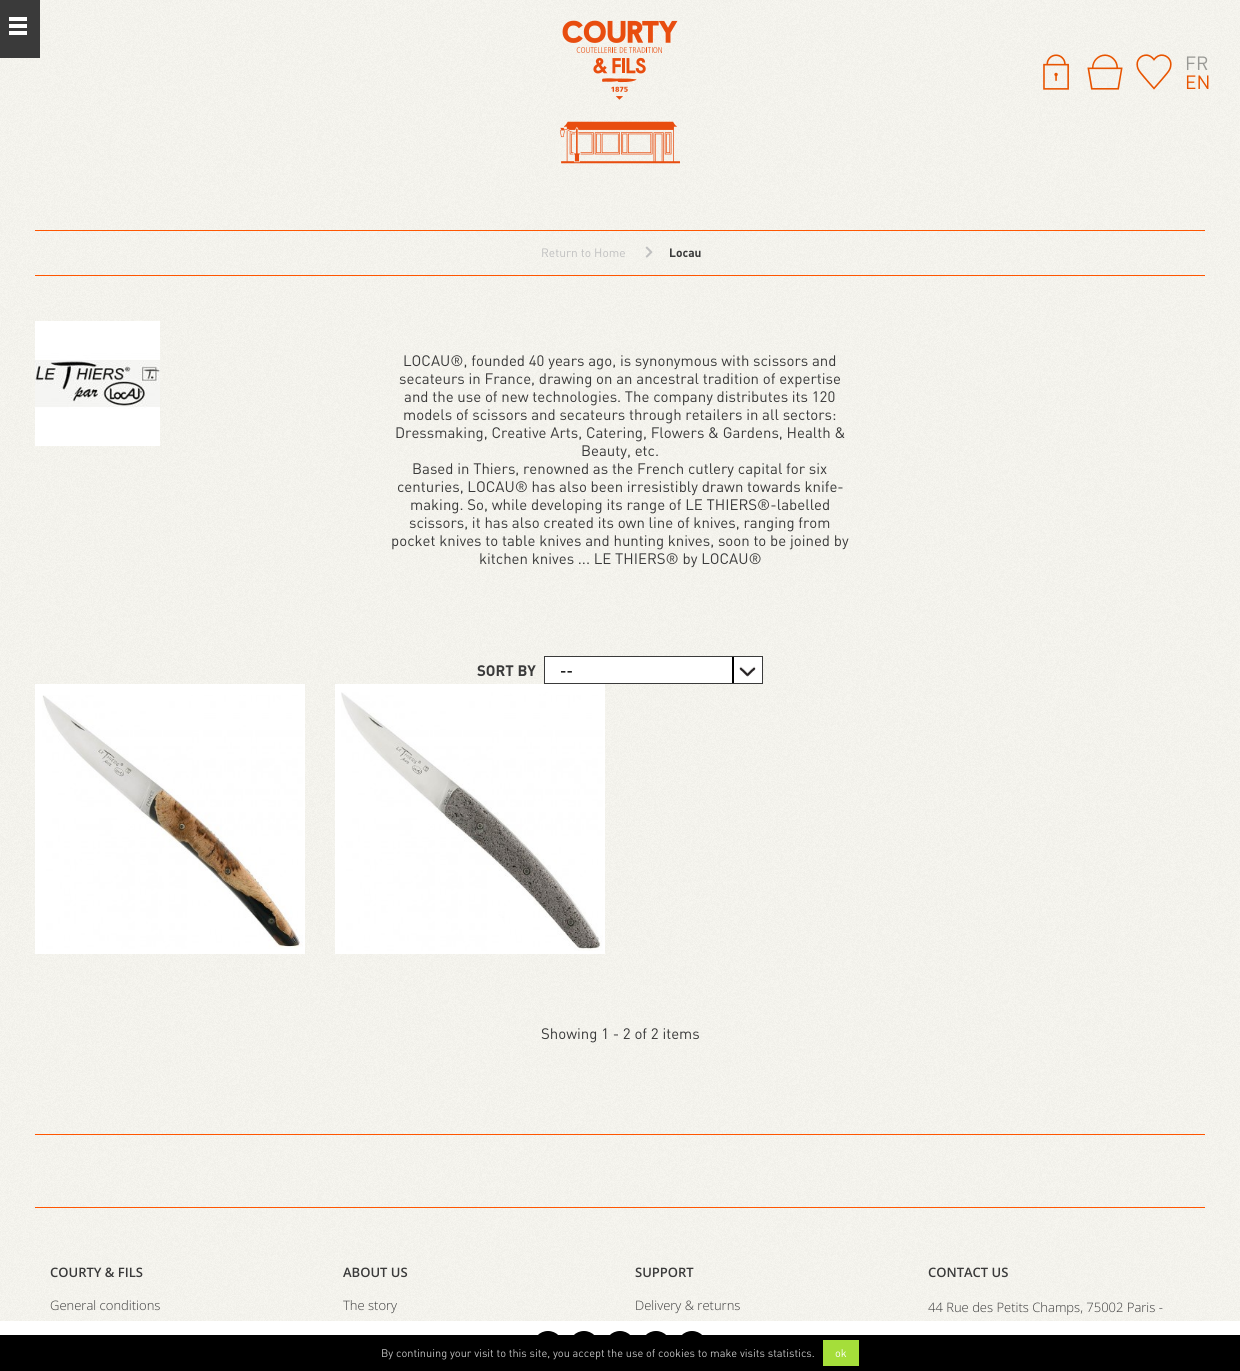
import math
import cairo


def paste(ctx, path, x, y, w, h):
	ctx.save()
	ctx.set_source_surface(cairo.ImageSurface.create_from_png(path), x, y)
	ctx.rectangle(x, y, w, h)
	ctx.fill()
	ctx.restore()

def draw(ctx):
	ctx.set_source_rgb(1, 1, 1)
	ctx.paint()
	paste(ctx, 'media/1.png', 0, 0, 1240, 1321)
	ctx.set_source_rgb(0.227, 0.227, 0.227)
	ctx.rectangle(0, 0, 40, 58)
	ctx.fill()
	ctx.set_source_rgb(1, 1, 1)
	ctx.rectangle(9, 17, 18, 4)
	ctx.rectangle(9, 24, 18, 4)
	ctx.rectangle(9, 31, 18, 4)
	ctx.fill()
	paste(ctx, 'media/2.png', 560, 20, 120, 144)
	paste(ctx, 'media/3.png', 1043, 54, 26, 36)
	paste(ctx, 'media/4.png', 1087, 54, 36, 36)
	paste(ctx, 'media/5.png', 1136, 54, 36, 36)
	ctx.select_font_face('DIN')
	ctx.set_font_size(19)
	ctx.set_source_rgb(0.6, 0.6, 0.584)
	ctx.move_to(1185, 70)
	ctx.show_text('FR')
	ctx.set_source_rgb(0.91, 0.329, 0)
	ctx.move_to(1185, 89)
	ctx.show_text('EN')
	ctx.set_source_rgb(1, 0.333, 0)
	ctx.rectangle(35, 230, 1170, 1)
	ctx.fill()
	ctx.rectangle(35, 275, 1170, 1)
	ctx.fill()
	ctx.set_font_size(12)
	ctx.set_source_rgb(0.753, 0.753, 0.753)
	ctx.move_to(541, 257)
	ctx.show_text('Return to Home')
	paste(ctx, 'media/6.png', 645, 246, 8, 12)
	ctx.select_font_face('DIN', cairo.FONT_SLANT_NORMAL, cairo.FONT_WEIGHT_BOLD)
	ctx.set_source_rgb(0.227, 0.227, 0.227)
	ctx.move_to(669, 257)
	ctx.show_text('Locau')
	paste(ctx, 'media/7.png', 35, 321, 125, 125)
	ctx.select_font_face('DIN')
	ctx.set_font_size(15)
	for x, y, s in [
		(403, 366, 'LOCAU®, founded 40 years ago, is synonymous with scissors and'),
		(399, 384, 'secateurs in France, drawing on an ancestral tradition of expertise'),
		(404, 402, 'and the use of new technologies. The company distributes its 120'),
		(403, 420, 'models of scissors and secateurs through retailers in all sectors:'),
		(395, 438, 'Dressmaking, Creative Arts, Catering, Flowers & Gardens, Health &'),
		(581, 456, 'Beauty, etc.'),
		(412, 474, 'Based in Thiers, renowned as the French cutlery capital for six'),
		(397, 492, 'centuries, LOCAU® has also been irresistibly drawn towards knife-'),
		(410, 510, 'making. So, while developing its range of LE THIERS®-labelled'),
		(409, 528, 'scissors, it has also created its own line of knives, ranging from'),
		(391, 546, 'pocket knives to table knives and hunting knives, soon to be joined by'),
		(479, 564, 'kitchen knives ... LE THIERS® by LOCAU®'),
	]:
		ctx.move_to(x, y)
		ctx.show_text(s)
	ctx.select_font_face('DIN', cairo.FONT_SLANT_NORMAL, cairo.FONT_WEIGHT_BOLD)
	ctx.move_to(477, 676)
	ctx.show_text('SORT BY')
	ctx.set_source_rgb(1, 1, 1)
	ctx.rectangle(545, 657, 217, 26)
	ctx.fill()
	paste(ctx, 'media/8.png', 732, 657, 24, 26)
	ctx.rectangle(544.5, 656.5, 218, 27)
	ctx.set_source_rgb(0.227, 0.227, 0.227)
	ctx.set_line_width(1)
	ctx.stroke()
	ctx.select_font_face('DIN Medium')
	ctx.set_source_rgb(0, 0, 0)
	ctx.move_to(560, 676)
	ctx.show_text('--')
	ctx.set_source_rgb(1, 1, 1)
	ctx.rectangle(35, 684, 270, 270)
	ctx.fill()
	paste(ctx, 'media/9.png', 42, 695, 261, 254)
	ctx.rectangle(335, 684, 270, 270)
	ctx.fill()
	paste(ctx, 'media/10.png', 341, 692, 262, 259)
	ctx.select_font_face('DIN')
	ctx.set_source_rgb(0.227, 0.227, 0.227)
	ctx.move_to(541, 1039)
	ctx.show_text('Showing 1 - 2 of 2 items')
	ctx.set_source_rgb(1, 0.333, 0)
	ctx.rectangle(35, 1134, 1170, 1)
	ctx.fill()
	ctx.rectangle(35, 1207, 1170, 1)
	ctx.fill()
	ctx.select_font_face('Open Sans SemiBold')
	ctx.set_font_size(13)
	ctx.set_source_rgb(0.227, 0.227, 0.227)
	ctx.move_to(50, 1277)
	ctx.show_text('COURTY & FILS')
	ctx.select_font_face('Open Sans Light')
	ctx.move_to(50, 1310)
	ctx.show_text('General conditions')
	ctx.select_font_face('Open Sans SemiBold')
	ctx.move_to(343, 1277)
	ctx.show_text('ABOUT US')
	ctx.select_font_face('Open Sans Light')
	ctx.move_to(343, 1310)
	ctx.show_text('The story')
	ctx.select_font_face('Open Sans SemiBold')
	ctx.move_to(635, 1277)
	ctx.show_text('SUPPORT')
	ctx.select_font_face('Open Sans Light')
	ctx.move_to(635, 1310)
	ctx.show_text('Delivery & returns')
	ctx.select_font_face('Open Sans SemiBold')
	ctx.move_to(928, 1277)
	ctx.show_text('CONTACT US')
	ctx.select_font_face('Open Sans Light')
	ctx.move_to(928, 1312)
	ctx.show_text('44 Rue des Petits Champs, 75002 Paris -')
	ctx.set_source_rgb(0, 0, 0)
	ctx.new_path()
	ctx.arc(548, 1346, 15, 0, 2 * math.pi)
	ctx.fill()
	ctx.arc(584, 1346, 15, 0, 2 * math.pi)
	ctx.fill()
	ctx.arc(620, 1346, 15, 0, 2 * math.pi)
	ctx.fill()
	ctx.arc(656, 1346, 15, 0, 2 * math.pi)
	ctx.fill()
	ctx.arc(692, 1346, 15, 0, 2 * math.pi)
	ctx.fill()
	ctx.rectangle(0, 1335, 1240, 36)
	ctx.fill()
	ctx.select_font_face('DIN')
	ctx.set_font_size(11)
	ctx.set_source_rgb(0.753, 0.753, 0.753)
	ctx.move_to(381, 1357)
	ctx.show_text('By continuing your visit to this site, you accept the use of cookies to make visits statistics.')
	ctx.set_source_rgb(0.647, 0.871, 0.227)
	ctx.rectangle(823, 1340, 36, 26)
	ctx.fill()
	ctx.set_source_rgb(1, 1, 1)
	ctx.move_to(835, 1357)
	ctx.show_text('ok')


surface = cairo.ImageSurface(cairo.FORMAT_RGB24, 1240, 1371)
ctx = cairo.Context(surface)
options = cairo.FontOptions()
options.set_hint_metrics(cairo.HINT_METRICS_OFF)
options.set_hint_style(cairo.HINT_STYLE_NONE)
ctx.set_font_options(options)
ctx.set_miter_limit(4)
draw(ctx)
surface.write_to_png('image.png')
